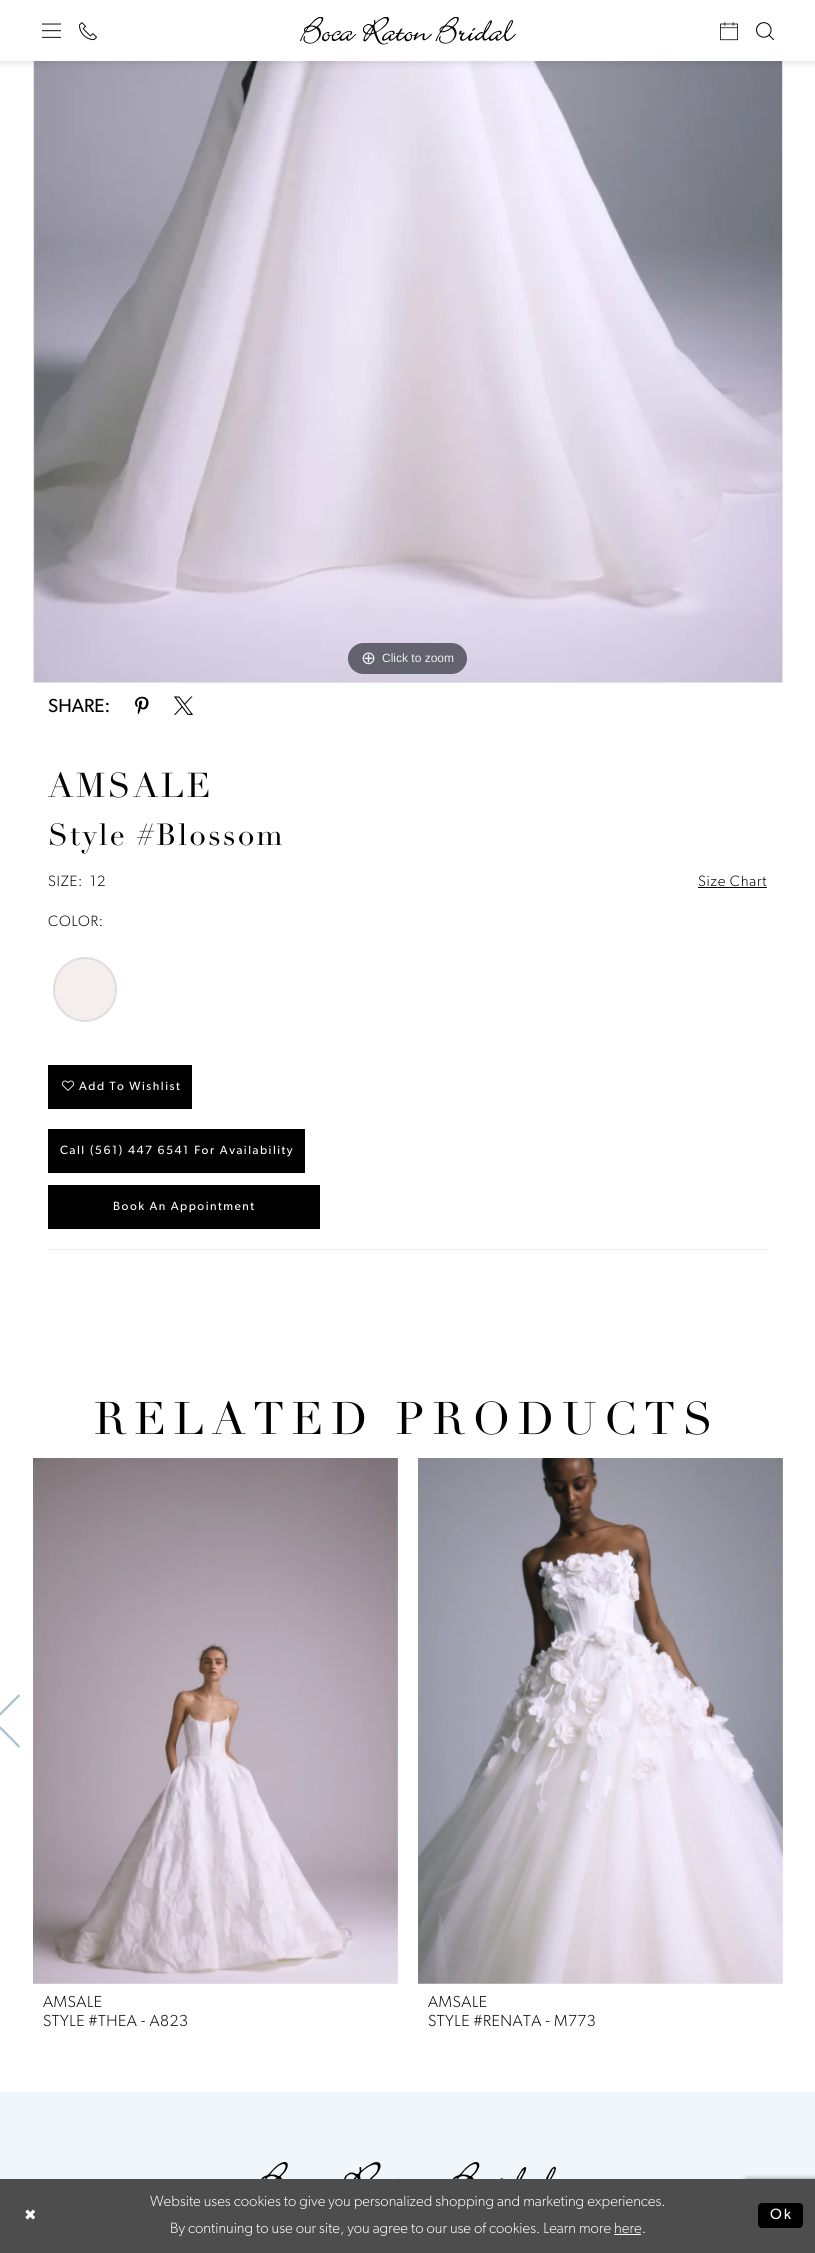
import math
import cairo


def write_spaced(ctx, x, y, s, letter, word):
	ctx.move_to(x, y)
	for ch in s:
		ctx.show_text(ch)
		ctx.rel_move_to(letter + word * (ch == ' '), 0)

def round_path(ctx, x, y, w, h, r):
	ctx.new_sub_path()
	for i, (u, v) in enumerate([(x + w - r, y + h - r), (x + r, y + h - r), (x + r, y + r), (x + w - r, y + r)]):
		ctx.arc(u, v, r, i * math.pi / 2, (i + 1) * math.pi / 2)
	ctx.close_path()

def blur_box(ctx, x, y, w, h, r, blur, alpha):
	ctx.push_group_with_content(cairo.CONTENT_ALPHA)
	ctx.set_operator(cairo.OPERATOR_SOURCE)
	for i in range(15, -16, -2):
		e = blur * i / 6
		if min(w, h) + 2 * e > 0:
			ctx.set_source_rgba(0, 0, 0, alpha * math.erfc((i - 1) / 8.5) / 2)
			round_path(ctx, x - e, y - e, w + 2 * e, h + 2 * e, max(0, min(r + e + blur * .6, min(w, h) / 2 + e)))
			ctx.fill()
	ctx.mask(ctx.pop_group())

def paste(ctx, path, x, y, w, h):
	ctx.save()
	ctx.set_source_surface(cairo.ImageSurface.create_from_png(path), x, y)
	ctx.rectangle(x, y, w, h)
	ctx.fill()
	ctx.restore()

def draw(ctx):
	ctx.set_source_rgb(1, 1, 1)
	ctx.paint()
	ctx.rectangle(33.5, -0.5, 749, 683)
	ctx.set_source_rgb(0.878, 0.878, 0.878)
	ctx.set_line_width(1)
	ctx.stroke()
	paste(ctx, 'media/6.png', 34, 61, 748, 621)
	ctx.set_source_rgb(0.118, 0.118, 0.118)
	blur_box(ctx, -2, -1, 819, 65, 0, 3, 0.1)
	ctx.set_source_rgb(1, 1, 1)
	ctx.rectangle(0, 0, 815, 61)
	ctx.fill()
	paste(ctx, 'media/1.png', 42, 23, 19, 15)
	paste(ctx, 'media/2.png', 79, 22, 18, 19)
	paste(ctx, 'media/3.png', 300, 17, 216, 28)
	paste(ctx, 'media/4.png', 720, 22, 18, 19)
	paste(ctx, 'media/5.png', 756, 22, 18, 19)
	ctx.set_source_rgba(0.192, 0.2, 0.239, 0.7)
	round_path(ctx, 348, 643, 119, 31, 15.5)
	ctx.fill()
	ctx.select_font_face('DejaVu Sans')
	ctx.set_font_size(18)
	ctx.set_source_rgb(0.933, 0.933, 0.933)
	ctx.move_to(361, 664)
	ctx.show_text('⊕')
	ctx.select_font_face('Liberation Sans')
	ctx.set_font_size(12)
	ctx.move_to(382, 662)
	ctx.show_text('Click to zoom')
	ctx.select_font_face('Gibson')
	ctx.set_font_size(19)
	ctx.set_source_rgb(0, 0, 0)
	ctx.move_to(48, 712)
	ctx.show_text('SHARE:')
	paste(ctx, 'media/7.png', 135, 696, 14, 19)
	paste(ctx, 'media/8.png', 174, 696, 19, 19)
	ctx.select_font_face('Didot')
	ctx.set_font_size(34)
	write_spaced(ctx, 48, 797, 'AMSALE', 2.5, 0)
	ctx.set_font_size(30)
	write_spaced(ctx, 48, 845, 'Style #Blossom', 2.1, 0)
	ctx.select_font_face('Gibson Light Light')
	ctx.set_font_size(15)
	for x, y, s in [
		(48, 886, 'SIZE:'),
		(90, 886, '12'),
		(698, 886, 'Size Chart'),
	]:
		write_spaced(ctx, x, y, s, 0.75, 0)
	ctx.rectangle(698, 887, 69, 1)
	ctx.fill()
	write_spaced(ctx, 48, 926, 'COLOR:', 0.75, 0)
	round_path(ctx, 53.5, 957.5, 63, 64, 31.5)
	ctx.set_source_rgb(0.871, 0.871, 0.871)
	ctx.stroke()
	ctx.set_source_rgb(0.957, 0.937, 0.925)
	round_path(ctx, 54, 958, 62, 63, 31)
	ctx.fill()
	round_path(ctx, 54.5, 958.5, 61, 62, 30.5)
	ctx.set_source_rgba(0, 0, 0, 0.1)
	ctx.stroke()
	ctx.set_source_rgb(0, 0, 0)
	ctx.rectangle(48, 1065, 144, 44)
	ctx.fill()
	paste(ctx, 'media/9.png', 62, 1080, 12, 11)
	ctx.select_font_face('Gibson')
	ctx.set_font_size(12)
	ctx.set_source_rgb(1, 1, 1)
	write_spaced(ctx, 79, 1090, 'Add To Wishlist', 1.5, 0)
	ctx.set_source_rgb(0, 0, 0)
	ctx.rectangle(48, 1129, 257, 44)
	ctx.fill()
	ctx.set_source_rgb(1, 1, 1)
	write_spaced(ctx, 60, 1154, 'Call (561) 447‑6541 For Availability', 1.5, 0.5)
	ctx.set_source_rgb(0, 0, 0)
	ctx.rectangle(48, 1185, 272, 44)
	ctx.fill()
	ctx.set_source_rgb(1, 1, 1)
	write_spaced(ctx, 113, 1210, 'Book An Appointment', 1.5, 0)
	ctx.set_source_rgb(0.933, 0.933, 0.933)
	ctx.rectangle(48, 1249, 720, 1)
	ctx.fill()
	ctx.select_font_face('Didot')
	ctx.set_font_size(45)
	ctx.set_source_rgb(0, 0, 0)
	write_spaced(ctx, 94, 1434, 'RELATED PRODUCTS', 7.7, 0)
	ctx.set_source_rgb(0.643, 0.749, 0.816)
	ctx.new_path()
	ctx.move_to(19, 1694)
	ctx.line_to(20, 1696)
	ctx.line_to(-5, 1721)
	ctx.line_to(20, 1746)
	ctx.line_to(19, 1748)
	ctx.line_to(-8, 1721)
	ctx.close_path()
	ctx.fill()
	paste(ctx, 'media/10.png', 33, 1458, 365, 526)
	ctx.select_font_face('Gibson Light Light')
	ctx.set_font_size(16)
	ctx.set_source_rgb(0, 0, 0)
	write_spaced(ctx, 43, 2007, 'AMSALE', 0.5, 0)
	write_spaced(ctx, 43, 2026, 'STYLE #THEA - A823', 0.5, 0)
	paste(ctx, 'media/11.png', 418, 1458, 365, 526)
	write_spaced(ctx, 428, 2007, 'AMSALE', 0.5, 0)
	write_spaced(ctx, 428, 2026, 'STYLE #RENATA - M773', 0.5, 0)
	ctx.set_source_rgb(0.941, 0.961, 0.973)
	ctx.rectangle(0, 2092, 815, 87)
	ctx.fill()
	paste(ctx, 'media/12.png', 261, 2162, 295, 17)
	ctx.set_source_rgb(0.502, 0.502, 0.502)
	blur_box(ctx, 745, 2179, 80, 60, 2, 2.5, 1)
	ctx.set_source_rgb(0.302, 0.302, 0.302)
	ctx.rectangle(0, 2179, 815, 74)
	ctx.fill()
	ctx.select_font_face('DejaVu Sans')
	ctx.set_font_size(15)
	ctx.set_source_rgb(1, 1, 1)
	write_spaced(ctx, 24, 2220, '✖', 2, 0)
	ctx.select_font_face('Gibson Light Light')
	ctx.move_to(150, 2206)
	ctx.show_text('Website uses cookies to give you personalized shopping and marketing experiences.')
	ctx.move_to(170, 2233)
	ctx.show_text('By continuing to use our site, you agree to our use of cookies. Learn more here.')
	ctx.rectangle(614, 2234, 27, 1)
	ctx.fill()
	ctx.set_source_rgb(0, 0, 0)
	round_path(ctx, 758, 2203, 45, 25, 4)
	ctx.fill()
	ctx.select_font_face('Gibson')
	ctx.set_source_rgb(1, 1, 1)
	write_spaced(ctx, 770, 2219, 'Ok', 2, 0)


surface = cairo.ImageSurface(cairo.FORMAT_RGB24, 815, 2253)
ctx = cairo.Context(surface)
options = cairo.FontOptions()
options.set_hint_metrics(cairo.HINT_METRICS_OFF)
options.set_hint_style(cairo.HINT_STYLE_NONE)
ctx.set_font_options(options)
ctx.set_miter_limit(4)
draw(ctx)
surface.write_to_png('image.png')
